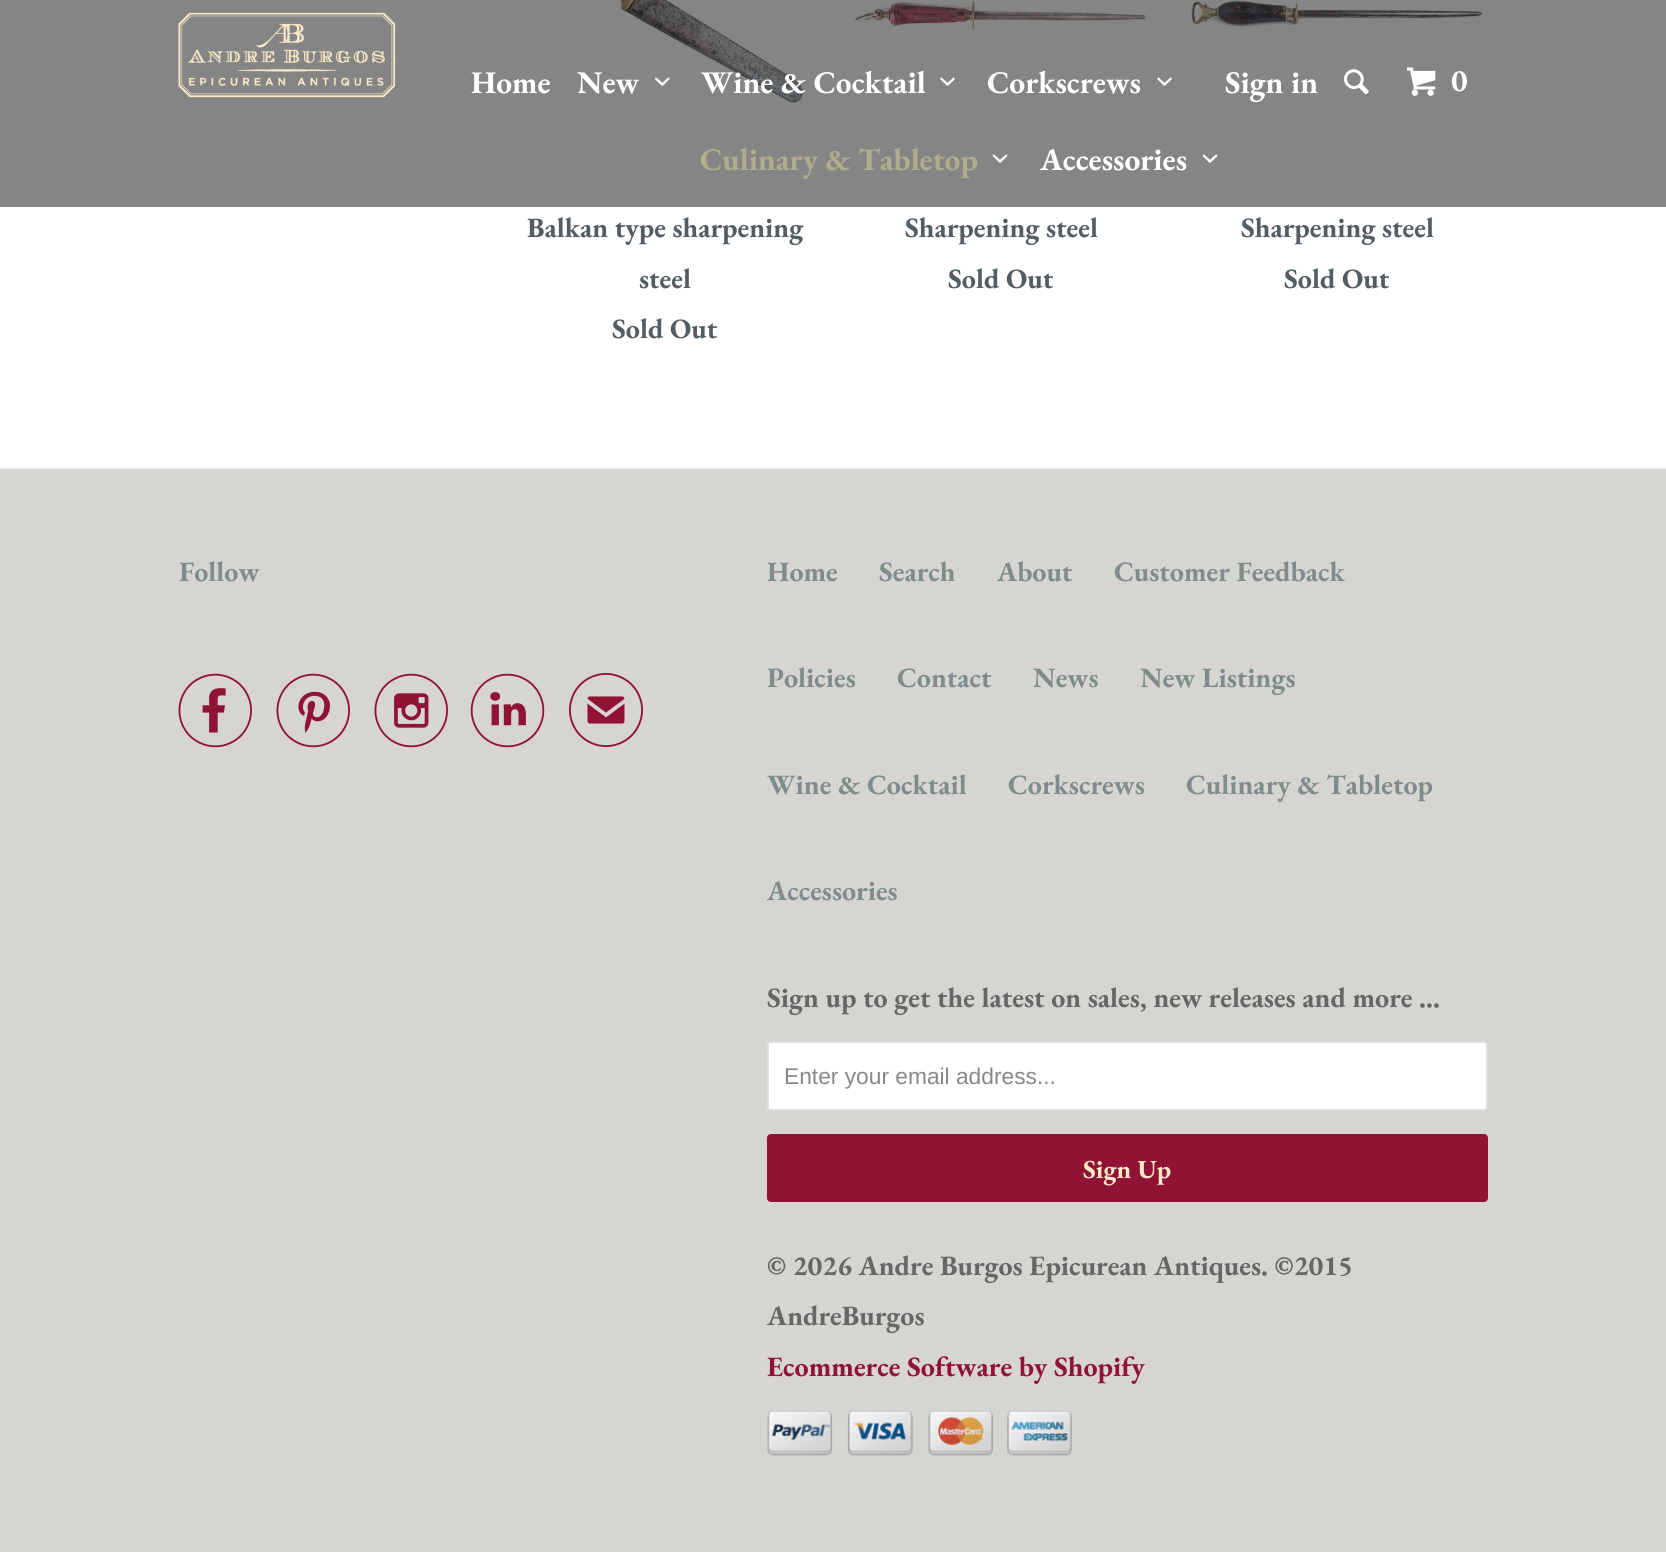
import math
import cairo


def round_path(ctx, x, y, w, h, r):
	ctx.new_sub_path()
	for i, (u, v) in enumerate([(x + w - r, y + h - r), (x + r, y + h - r), (x + r, y + r), (x + w - r, y + r)]):
		ctx.arc(u, v, r, i * math.pi / 2, (i + 1) * math.pi / 2)
	ctx.close_path()

def paste(ctx, path, x, y, w, h):
	ctx.save()
	ctx.set_source_surface(cairo.ImageSurface.create_from_png(path), x, y)
	ctx.rectangle(x, y, w, h)
	ctx.fill()
	ctx.restore()

def draw(ctx):
	ctx.set_source_rgb(1, 1, 1)
	ctx.paint()
	ctx.set_source_rgb(0.522, 0.522, 0.522)
	ctx.rectangle(0, 0, 1666, 207)
	ctx.fill()
	paste(ctx, 'media/1.png', 178, 12, 218, 86)
	ctx.select_font_face('EB Garamond', cairo.FONT_SLANT_NORMAL, cairo.FONT_WEIGHT_BOLD)
	ctx.set_font_size(31.5)
	ctx.set_source_rgb(1, 1, 1)
	ctx.move_to(471, 93)
	ctx.show_text('Home')
	paste(ctx, 'media/7.png', 619, 0, 185, 103)
	ctx.move_to(577, 93)
	ctx.show_text('New')
	paste(ctx, 'media/2.png', 655, 77, 15, 9)
	ctx.move_to(701, 93)
	ctx.show_text('Wine & Cocktail')
	paste(ctx, 'media/3.png', 940, 77, 15, 9)
	ctx.move_to(987, 93)
	ctx.show_text('Corkscrews')
	paste(ctx, 'media/3.png', 1157, 77, 15, 9)
	ctx.set_source_rgb(0.69, 0.678, 0.549)
	ctx.move_to(700, 170)
	ctx.show_text('Culinary & Tabletop')
	paste(ctx, 'media/4.png', 992, 154, 16, 9)
	ctx.set_source_rgb(1, 1, 1)
	ctx.move_to(1040, 170)
	ctx.show_text('Accessories')
	paste(ctx, 'media/4.png', 1202, 154, 16, 9)
	ctx.move_to(1225, 93)
	ctx.show_text('Sign in')
	paste(ctx, 'media/5.png', 1344, 69, 25, 26)
	paste(ctx, 'media/6.png', 1407, 67, 29, 29)
	ctx.move_to(1451, 91)
	ctx.show_text('0')
	ctx.set_font_size(28)
	ctx.set_source_rgb(0.322, 0.365, 0.388)
	for x, y, s in [
		(527, 237, 'Balkan type sharpening'),
		(639, 288, 'steel'),
		(612, 338, 'Sold Out'),
	]:
		ctx.move_to(x, y)
		ctx.show_text(s)
	paste(ctx, 'media/8.png', 854, 0, 294, 30)
	ctx.move_to(905, 237)
	ctx.show_text('Sharpening steel')
	ctx.move_to(948, 288)
	ctx.show_text('Sold Out')
	paste(ctx, 'media/9.png', 1190, 0, 294, 31)
	ctx.move_to(1241, 237)
	ctx.show_text('Sharpening steel')
	ctx.move_to(1284, 288)
	ctx.show_text('Sold Out')
	ctx.set_source_rgb(0.839, 0.835, 0.824)
	ctx.rectangle(0, 469, 1666, 1083)
	ctx.fill()
	ctx.set_source_rgb(0.949, 0.949, 0.949)
	ctx.rectangle(0, 467, 1666, 2)
	ctx.fill()
	ctx.set_source_rgb(0.498, 0.549, 0.553)
	ctx.move_to(179, 581)
	ctx.show_text('Follow')
	paste(ctx, 'media/10.png', 178, 673, 74, 75)
	paste(ctx, 'media/11.png', 276, 673, 74, 75)
	paste(ctx, 'media/12.png', 374, 673, 74, 75)
	paste(ctx, 'media/13.png', 470, 673, 75, 75)
	ctx.select_font_face('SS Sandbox')
	ctx.set_font_size(74)
	ctx.set_source_rgb(0.565, 0.071, 0.208)
	ctx.move_to(569, 747)
	ctx.show_text('✉')
	ctx.select_font_face('EB Garamond', cairo.FONT_SLANT_NORMAL, cairo.FONT_WEIGHT_BOLD)
	ctx.set_font_size(28)
	ctx.set_source_rgb(0.498, 0.549, 0.553)
	for x, y, s in [
		(767, 581, 'Home'),
		(879, 581, 'Search'),
		(997, 581, 'About'),
		(1114, 581, 'Customer Feedback'),
		(767, 687, 'Policies'),
		(897, 687, 'Contact'),
		(1033, 687, 'News'),
		(1140, 687, 'New Listings'),
		(767, 794, 'Wine & Cocktail'),
		(1008, 794, 'Corkscrews'),
		(1186, 794, 'Culinary & Tabletop'),
		(767, 900, 'Accessories'),
	]:
		ctx.move_to(x, y)
		ctx.show_text(s)
	ctx.set_source_rgb(0.4, 0.4, 0.4)
	ctx.move_to(767, 1007)
	ctx.show_text('Sign up to get the latest on sales, new releases and more …')
	ctx.set_source_rgb(1, 1, 1)
	round_path(ctx, 768, 1042, 719, 68, 3)
	ctx.fill_preserve()
	ctx.set_source_rgb(0.875, 0.875, 0.875)
	ctx.stroke()
	ctx.select_font_face('Liberation Sans')
	ctx.set_font_size(22.75)
	ctx.set_source_rgb(0.533, 0.533, 0.533)
	ctx.move_to(784, 1084)
	ctx.show_text('Enter your email address...')
	ctx.set_source_rgb(0.565, 0.071, 0.208)
	round_path(ctx, 767, 1134, 721, 68, 4)
	ctx.fill()
	ctx.select_font_face('EB Garamond', cairo.FONT_SLANT_NORMAL, cairo.FONT_WEIGHT_BOLD)
	ctx.set_font_size(26)
	ctx.set_source_rgb(0.98, 0.918, 0.78)
	ctx.move_to(1083, 1178)
	ctx.show_text('Sign Up')
	ctx.set_font_size(28)
	ctx.set_source_rgb(0.4, 0.4, 0.4)
	ctx.move_to(767, 1275)
	ctx.show_text('© 2026 Andre Burgos Epicurean Antiques. ©2015')
	ctx.move_to(767, 1325)
	ctx.show_text('AndreBurgos')
	ctx.set_source_rgb(0.565, 0.071, 0.208)
	ctx.move_to(767, 1376)
	ctx.show_text('Ecommerce Software by Shopify')
	paste(ctx, 'media/14.png', 767, 1410, 66, 46)
	paste(ctx, 'media/15.png', 847, 1410, 66, 46)
	paste(ctx, 'media/16.png', 928, 1410, 66, 46)
	paste(ctx, 'media/17.png', 1007, 1410, 65, 46)


surface = cairo.ImageSurface(cairo.FORMAT_RGB24, 1666, 1552)
ctx = cairo.Context(surface)
options = cairo.FontOptions()
options.set_hint_metrics(cairo.HINT_METRICS_OFF)
options.set_hint_style(cairo.HINT_STYLE_NONE)
ctx.set_font_options(options)
ctx.set_miter_limit(4)
draw(ctx)
surface.write_to_png('image.png')
